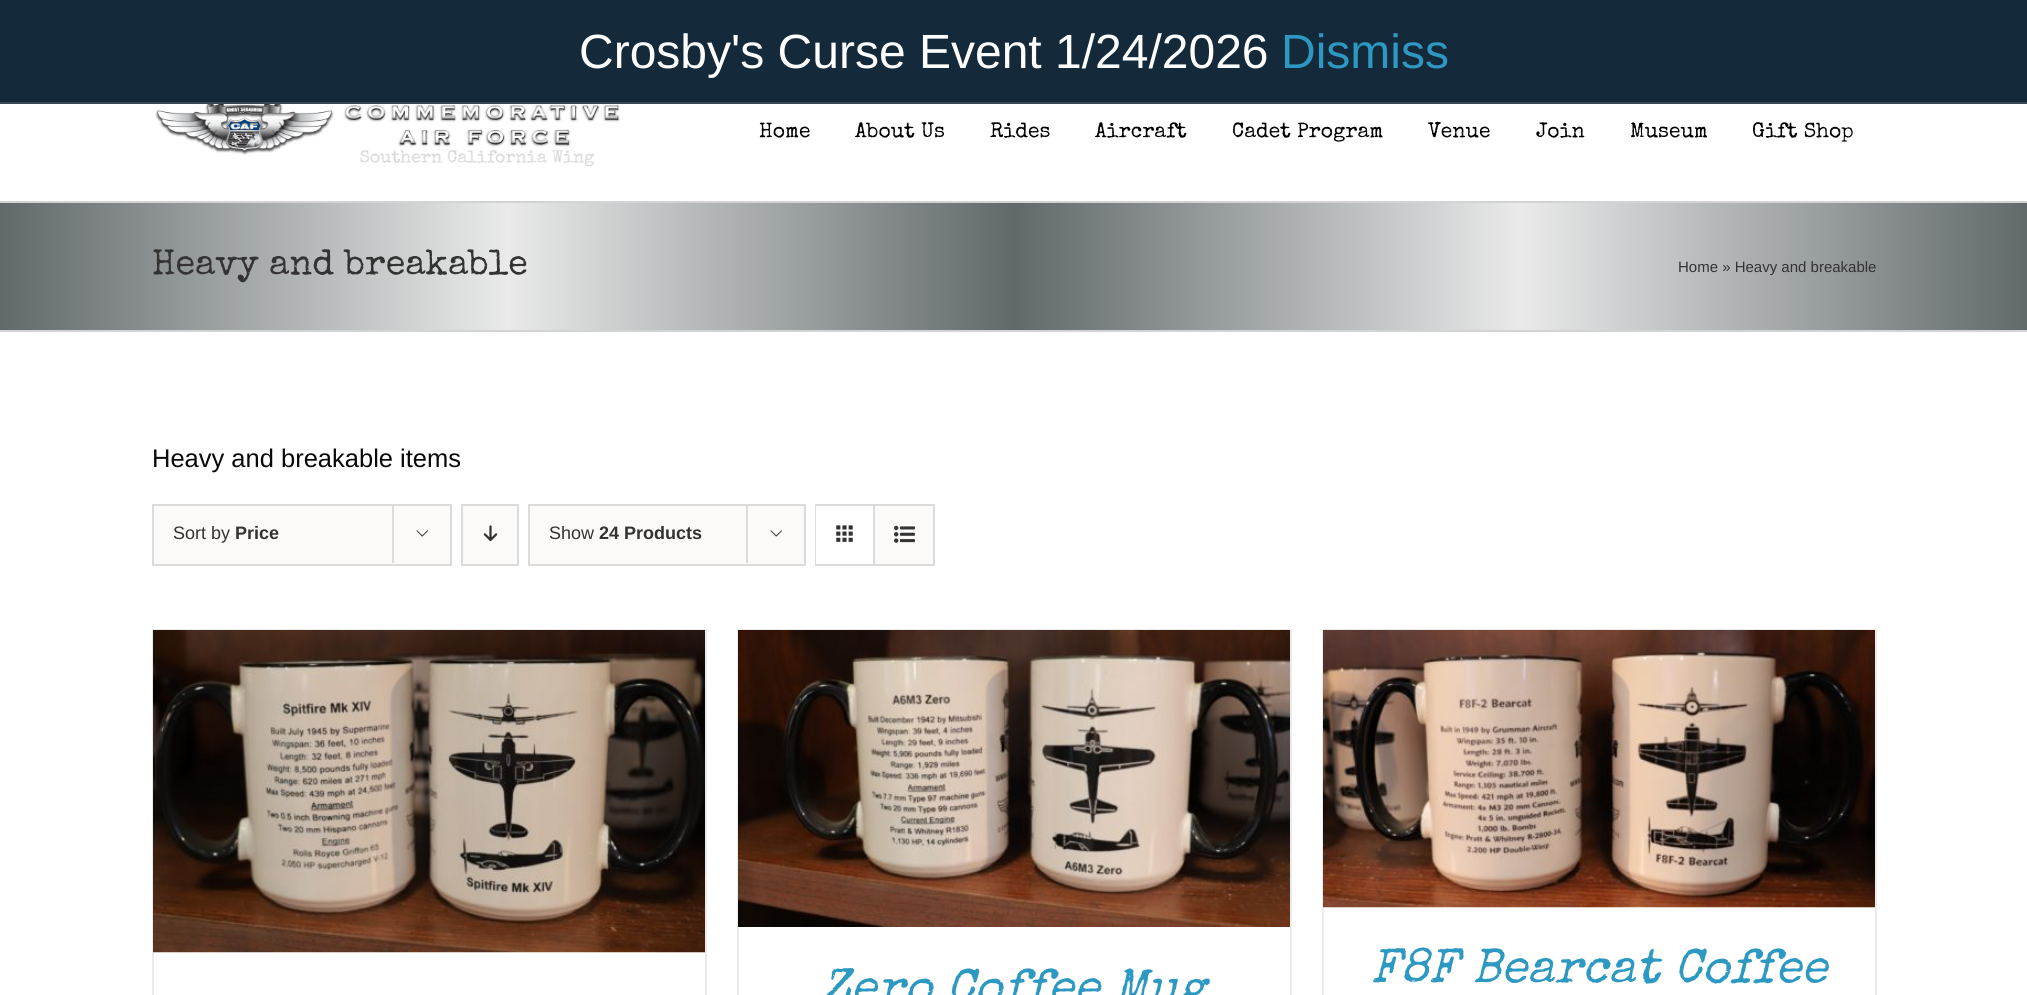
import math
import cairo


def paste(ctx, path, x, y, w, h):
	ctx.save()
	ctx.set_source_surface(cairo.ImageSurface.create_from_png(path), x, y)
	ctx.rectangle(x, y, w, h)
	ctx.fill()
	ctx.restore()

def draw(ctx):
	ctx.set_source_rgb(1, 1, 1)
	ctx.paint()
	ctx.set_source_rgb(0.082, 0.161, 0.227)
	ctx.rectangle(0, 0, 2027, 102)
	ctx.fill()
	ctx.set_source_rgb(0.22, 0.286, 0.345)
	ctx.rectangle(0, 102, 2027, 2)
	ctx.fill()
	ctx.select_font_face('Liberation Sans')
	ctx.set_font_size(48)
	ctx.set_source_rgb(1, 1, 1)
	ctx.move_to(579, 68)
	ctx.show_text('Crosby\'s Curse Event 1/24/2026')
	ctx.set_source_rgb(0.176, 0.596, 0.757)
	ctx.move_to(1281, 68)
	ctx.show_text('Dismiss')
	paste(ctx, 'media/1.png', 155, 104, 465, 63)
	ctx.select_font_face('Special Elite')
	ctx.set_font_size(21)
	ctx.set_source_rgb(0, 0, 0)
	for x, y, s in [
		(759, 137, 'Home'),
		(855, 137, 'About Us'),
		(990, 137, 'Rides'),
		(1095, 137, 'Aircraft'),
		(1232, 137, 'Cadet Program'),
		(1428, 137, 'Venue'),
		(1536, 137, 'Join'),
		(1630, 137, 'Museum'),
		(1752, 137, 'Gift Shop'),
	]:
		ctx.move_to(x, y)
		ctx.show_text(s)
	gradient = cairo.LinearGradient(0, 266, 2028, 266)
	gradient.add_color_stop_rgba(0, 0.38, 0.412, 0.42, 1)
	gradient.add_color_stop_rgba(0.25, 0.918, 0.918, 0.918, 1)
	gradient.add_color_stop_rgba(0.5, 0.38, 0.412, 0.42, 1)
	gradient.add_color_stop_rgba(0.75, 0.918, 0.918, 0.918, 1)
	gradient.add_color_stop_rgba(1, 0.38, 0.412, 0.42, 1)
	ctx.set_source(gradient)
	ctx.rectangle(0, 203, 2027, 127)
	ctx.fill()
	ctx.set_source_rgb(0.824, 0.827, 0.831)
	ctx.rectangle(0, 201, 2027, 2)
	ctx.fill()
	ctx.rectangle(0, 330, 2027, 2)
	ctx.fill()
	ctx.set_font_size(36)
	ctx.set_source_rgb(0.2, 0.2, 0.2)
	ctx.move_to(152, 274)
	ctx.show_text('Heavy and breakable')
	ctx.select_font_face('Liberation Sans')
	ctx.set_font_size(15)
	ctx.move_to(1678, 272)
	ctx.show_text('Home » Heavy and breakable')
	ctx.set_font_size(25.5)
	ctx.set_source_rgb(0.039, 0.039, 0.039)
	ctx.move_to(152, 467)
	ctx.show_text('Heavy and breakable items')
	ctx.set_source_rgb(0.984, 0.98, 0.976)
	ctx.rectangle(153, 505, 298, 60)
	ctx.fill_preserve()
	ctx.set_source_rgb(0.859, 0.859, 0.859)
	ctx.stroke()
	ctx.set_font_size(18)
	ctx.set_source_rgb(0.2, 0.2, 0.2)
	ctx.move_to(173, 539)
	ctx.show_text('Sort by')
	ctx.select_font_face('Liberation Sans', cairo.FONT_SLANT_NORMAL, cairo.FONT_WEIGHT_BOLD)
	ctx.move_to(235, 539)
	ctx.show_text('Price')
	ctx.set_source_rgb(0.859, 0.859, 0.859)
	ctx.rectangle(392, 504, 2, 59)
	ctx.fill()
	paste(ctx, 'media/2.png', 416, 530, 12, 7)
	ctx.set_source_rgb(0.984, 0.98, 0.976)
	ctx.rectangle(462, 505, 56, 60)
	ctx.fill_preserve()
	ctx.set_source_rgb(0.859, 0.859, 0.859)
	ctx.stroke()
	paste(ctx, 'media/3.png', 483, 525, 15, 17)
	ctx.set_source_rgb(0.984, 0.98, 0.976)
	ctx.rectangle(529, 505, 276, 60)
	ctx.fill_preserve()
	ctx.set_source_rgb(0.859, 0.859, 0.859)
	ctx.stroke()
	ctx.select_font_face('Liberation Sans')
	ctx.set_source_rgb(0.2, 0.2, 0.2)
	ctx.move_to(549, 539)
	ctx.show_text('Show')
	ctx.select_font_face('Liberation Sans', cairo.FONT_SLANT_NORMAL, cairo.FONT_WEIGHT_BOLD)
	ctx.move_to(599, 539)
	ctx.show_text('24 Products')
	ctx.set_source_rgb(0.859, 0.859, 0.859)
	ctx.rectangle(746, 504, 2, 59)
	ctx.fill()
	paste(ctx, 'media/2.png', 770, 530, 12, 7)
	ctx.rectangle(816, 505, 118, 60)
	ctx.stroke()
	ctx.set_source_rgb(1, 1, 1)
	ctx.rectangle(816, 506, 1, 58)
	ctx.fill()
	ctx.set_source_rgb(0.859, 0.859, 0.859)
	ctx.rectangle(873, 506, 2, 58)
	ctx.fill()
	paste(ctx, 'media/4.png', 836, 525, 17, 17)
	ctx.set_source_rgb(0.984, 0.98, 0.976)
	ctx.rectangle(875, 506, 58, 58)
	ctx.fill()
	paste(ctx, 'media/5.png', 894, 525, 21, 18)
	ctx.set_source_rgb(0.922, 0.918, 0.918)
	ctx.rectangle(152, 629, 555, 1)
	ctx.rectangle(705, 629, 2, 366)
	ctx.rectangle(152, 629, 2, 366)
	ctx.fill()
	paste(ctx, 'media/6.png', 153, 630, 552, 323)
	ctx.rectangle(737, 629, 555, 1)
	ctx.rectangle(1290, 629, 2, 366)
	ctx.rectangle(737, 629, 2, 366)
	ctx.fill()
	paste(ctx, 'media/7.png', 738, 630, 552, 297)
	ctx.select_font_face('Special Elite', cairo.FONT_SLANT_ITALIC)
	ctx.set_font_size(48)
	ctx.set_source_rgb(0.176, 0.596, 0.757)
	ctx.move_to(822, 1002)
	ctx.show_text('Zero Coffee Mug')
	ctx.set_source_rgb(0.922, 0.918, 0.918)
	ctx.rectangle(1322, 629, 555, 1)
	ctx.rectangle(1875, 629, 2, 366)
	ctx.rectangle(1322, 629, 2, 366)
	ctx.fill()
	paste(ctx, 'media/8.png', 1323, 630, 552, 278)
	ctx.set_source_rgb(0.176, 0.596, 0.757)
	ctx.move_to(1371, 982)
	ctx.show_text('F8F Bearcat Coffee')


surface = cairo.ImageSurface(cairo.FORMAT_RGB24, 2027, 995)
ctx = cairo.Context(surface)
options = cairo.FontOptions()
options.set_hint_metrics(cairo.HINT_METRICS_OFF)
options.set_hint_style(cairo.HINT_STYLE_NONE)
ctx.set_font_options(options)
ctx.set_miter_limit(4)
draw(ctx)
surface.write_to_png('image.png')
